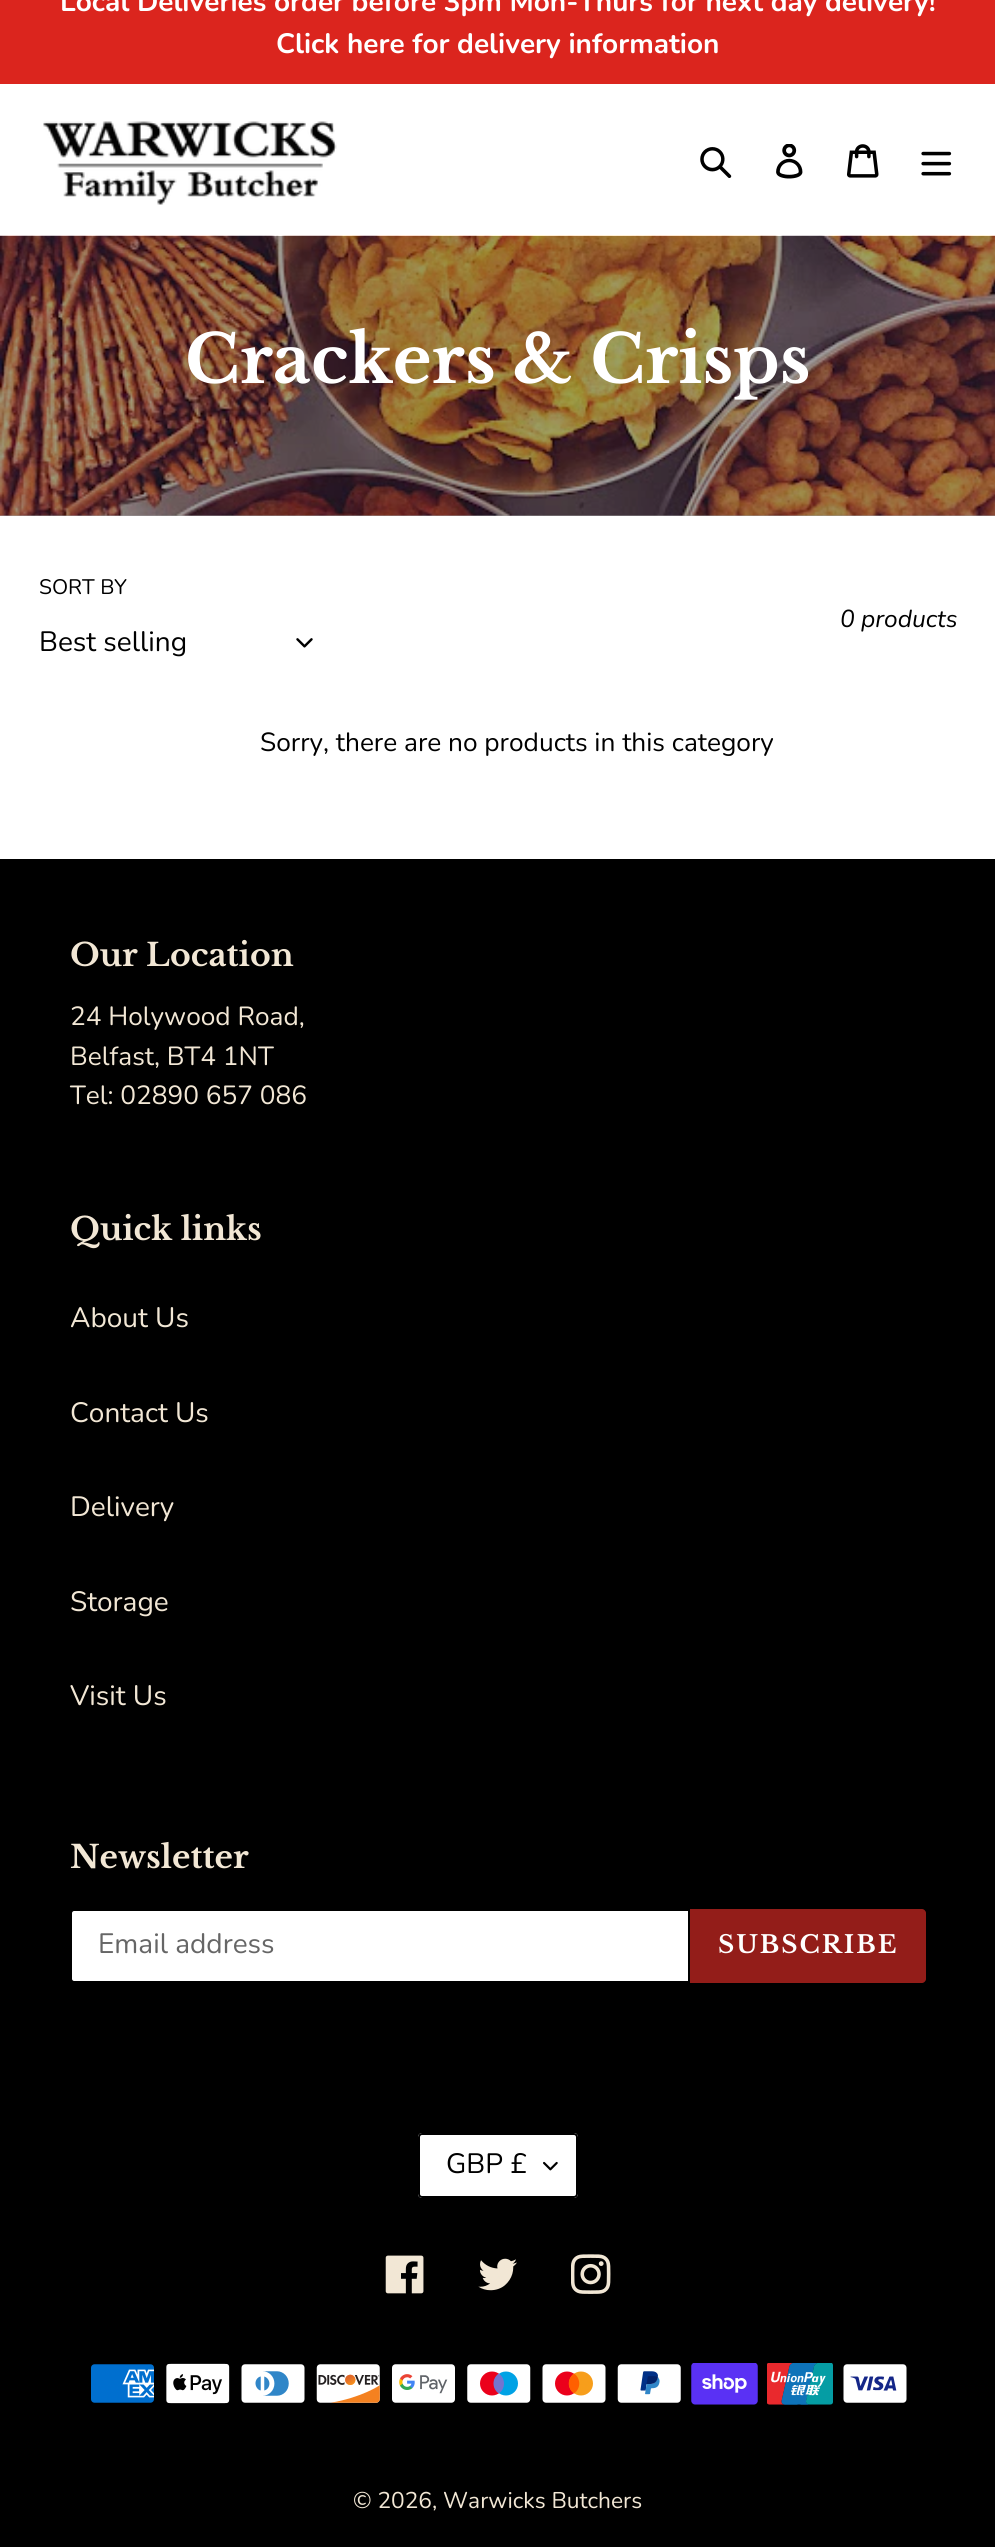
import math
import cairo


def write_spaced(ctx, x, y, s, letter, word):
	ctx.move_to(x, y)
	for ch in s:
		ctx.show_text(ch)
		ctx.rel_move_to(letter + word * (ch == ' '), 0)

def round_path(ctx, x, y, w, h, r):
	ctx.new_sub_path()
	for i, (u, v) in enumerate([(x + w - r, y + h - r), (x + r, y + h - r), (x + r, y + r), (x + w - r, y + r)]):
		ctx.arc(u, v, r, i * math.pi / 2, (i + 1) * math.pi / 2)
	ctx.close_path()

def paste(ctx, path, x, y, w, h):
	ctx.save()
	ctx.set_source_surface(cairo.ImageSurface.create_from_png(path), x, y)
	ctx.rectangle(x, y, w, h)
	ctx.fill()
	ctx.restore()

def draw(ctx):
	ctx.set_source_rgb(1, 1, 1)
	ctx.paint()
	ctx.set_source_rgb(0.62, 0.62, 0.62)
	ctx.rectangle(0, 515, 995, 1)
	ctx.fill()
	ctx.set_source_rgb(0.859, 0.145, 0.118)
	ctx.rectangle(0, 0, 995, 84)
	ctx.fill()
	ctx.select_font_face('Nunito', cairo.FONT_SLANT_NORMAL, cairo.FONT_WEIGHT_BOLD)
	ctx.set_font_size(28)
	ctx.set_source_rgb(1, 1, 1)
	ctx.move_to(60, 11)
	ctx.show_text('Local Deliveries order before 3pm Mon-Thurs for next day delivery!')
	ctx.move_to(276, 53)
	ctx.show_text('Click here for delivery information')
	paste(ctx, 'media/1.png', 43, 121, 294, 84)
	paste(ctx, 'media/2.png', 700, 147, 32, 31)
	paste(ctx, 'media/3.png', 776, 144, 27, 35)
	paste(ctx, 'media/4.png', 847, 144, 32, 34)
	paste(ctx, 'media/5.png', 921, 151, 31, 25)
	paste(ctx, 'media/6.png', 0, 235, 995, 281)
	ctx.select_font_face('Libre Baskerville', cairo.FONT_SLANT_NORMAL, cairo.FONT_WEIGHT_BOLD)
	ctx.set_font_size(66.5)
	ctx.move_to(185, 383)
	ctx.show_text('Crackers & Crisps')
	ctx.select_font_face('Nunito')
	ctx.set_font_size(21)
	ctx.set_source_rgb(0, 0, 0)
	ctx.move_to(39, 594)
	ctx.show_text('SORT BY')
	ctx.set_font_size(28)
	ctx.move_to(39, 651)
	ctx.show_text('Best selling')
	paste(ctx, 'media/7.png', 296, 638, 17, 10)
	ctx.select_font_face('Nunito', cairo.FONT_SLANT_ITALIC)
	ctx.set_font_size(24.5)
	ctx.move_to(840, 627)
	ctx.show_text('0 products')
	ctx.select_font_face('Nunito')
	ctx.set_font_size(26.25)
	ctx.move_to(260, 751)
	ctx.show_text('Sorry, there are no products in this category')
	ctx.rectangle(0, 859, 995, 1688)
	ctx.fill()
	ctx.select_font_face('Libre Baskerville', cairo.FONT_SLANT_NORMAL, cairo.FONT_WEIGHT_BOLD)
	ctx.set_font_size(31.5)
	ctx.set_source_rgb(0.949, 0.906, 0.835)
	ctx.move_to(70, 966)
	ctx.show_text('Our Location')
	ctx.select_font_face('Nunito')
	ctx.set_font_size(26.25)
	for x, y, s in [
		(70, 1025, '24 Holywood Road,'),
		(70, 1065, 'Belfast, BT4 1NT'),
		(70, 1104, 'Tel: 02890 657 086'),
	]:
		ctx.move_to(x, y)
		ctx.show_text(s)
	ctx.select_font_face('Libre Baskerville', cairo.FONT_SLANT_NORMAL, cairo.FONT_WEIGHT_BOLD)
	ctx.set_font_size(31.5)
	ctx.move_to(70, 1240)
	ctx.show_text('Quick links')
	ctx.select_font_face('Nunito')
	ctx.set_font_size(28)
	for x, y, s in [
		(70, 1327, 'About Us'),
		(70, 1422, 'Contact Us'),
		(70, 1516, 'Delivery'),
		(70, 1611, 'Storage'),
		(70, 1705, 'Visit Us'),
	]:
		ctx.move_to(x, y)
		ctx.show_text(s)
	ctx.select_font_face('Libre Baskerville', cairo.FONT_SLANT_NORMAL, cairo.FONT_WEIGHT_BOLD)
	ctx.set_font_size(31.5)
	ctx.move_to(70, 1868)
	ctx.show_text('Newsletter')
	ctx.set_source_rgb(1, 1, 1)
	ctx.new_path()
	ctx.move_to(74, 1910)
	ctx.line_to(689, 1910)
	ctx.line_to(689, 1982)
	ctx.line_to(74, 1982)
	ctx.curve_to(72.5, 1982, 71, 1980.5, 71, 1979)
	ctx.line_to(71, 1913)
	ctx.curve_to(71, 1911.5, 72.5, 1910, 74, 1910)
	ctx.close_path()
	ctx.fill_preserve()
	ctx.set_source_rgb(0, 0, 0)
	ctx.stroke()
	ctx.select_font_face('Nunito')
	ctx.set_font_size(28)
	ctx.set_source_rgb(0.4, 0.4, 0.4)
	ctx.move_to(98, 1953)
	ctx.show_text('Email address')
	ctx.set_source_rgb(0.576, 0.114, 0.098)
	ctx.new_path()
	ctx.move_to(690, 1909)
	ctx.line_to(922, 1909)
	ctx.curve_to(924, 1909, 926, 1911, 926, 1913)
	ctx.line_to(926, 1979)
	ctx.curve_to(926, 1981, 924, 1983, 922, 1983)
	ctx.line_to(690, 1983)
	ctx.close_path()
	ctx.fill()
	ctx.select_font_face('Libre Baskerville', cairo.FONT_SLANT_NORMAL, cairo.FONT_WEIGHT_BOLD)
	ctx.set_font_size(24.5)
	ctx.set_source_rgb(1, 1, 1)
	write_spaced(ctx, 718, 1953, 'SUBSCRIBE', 2, 0)
	round_path(ctx, 418, 2133, 160, 65, 4)
	ctx.fill()
	paste(ctx, 'media/8.png', 543, 2161, 15, 10)
	round_path(ctx, 419, 2134, 158, 63, 3)
	ctx.set_source_rgb(0, 0, 0)
	ctx.stroke()
	ctx.select_font_face('Nunito')
	ctx.set_font_size(28)
	ctx.move_to(446, 2173)
	ctx.show_text('GBP £')
	paste(ctx, 'media/9.png', 385, 2255, 39, 39)
	paste(ctx, 'media/10.png', 478, 2258, 39, 33)
	paste(ctx, 'media/11.png', 571, 2254, 40, 40)
	paste(ctx, 'media/12.png', 91, 2364, 63, 39)
	paste(ctx, 'media/13.png', 166, 2363, 64, 41)
	paste(ctx, 'media/14.png', 241, 2364, 64, 39)
	paste(ctx, 'media/15.png', 316, 2364, 64, 39)
	paste(ctx, 'media/16.png', 392, 2364, 63, 39)
	paste(ctx, 'media/17.png', 467, 2364, 64, 39)
	paste(ctx, 'media/18.png', 542, 2364, 64, 39)
	paste(ctx, 'media/19.png', 617, 2364, 64, 39)
	paste(ctx, 'media/20.png', 691, 2363, 67, 42)
	paste(ctx, 'media/21.png', 767, 2363, 66, 42)
	paste(ctx, 'media/22.png', 843, 2364, 64, 39)
	ctx.set_font_size(22.75)
	ctx.set_source_rgb(0.949, 0.906, 0.835)
	ctx.move_to(353, 2508)
	ctx.show_text('© 2026, Warwicks Butchers')


surface = cairo.ImageSurface(cairo.FORMAT_RGB24, 995, 2547)
ctx = cairo.Context(surface)
options = cairo.FontOptions()
options.set_hint_metrics(cairo.HINT_METRICS_OFF)
options.set_hint_style(cairo.HINT_STYLE_NONE)
ctx.set_font_options(options)
ctx.set_miter_limit(4)
draw(ctx)
surface.write_to_png('image.png')
